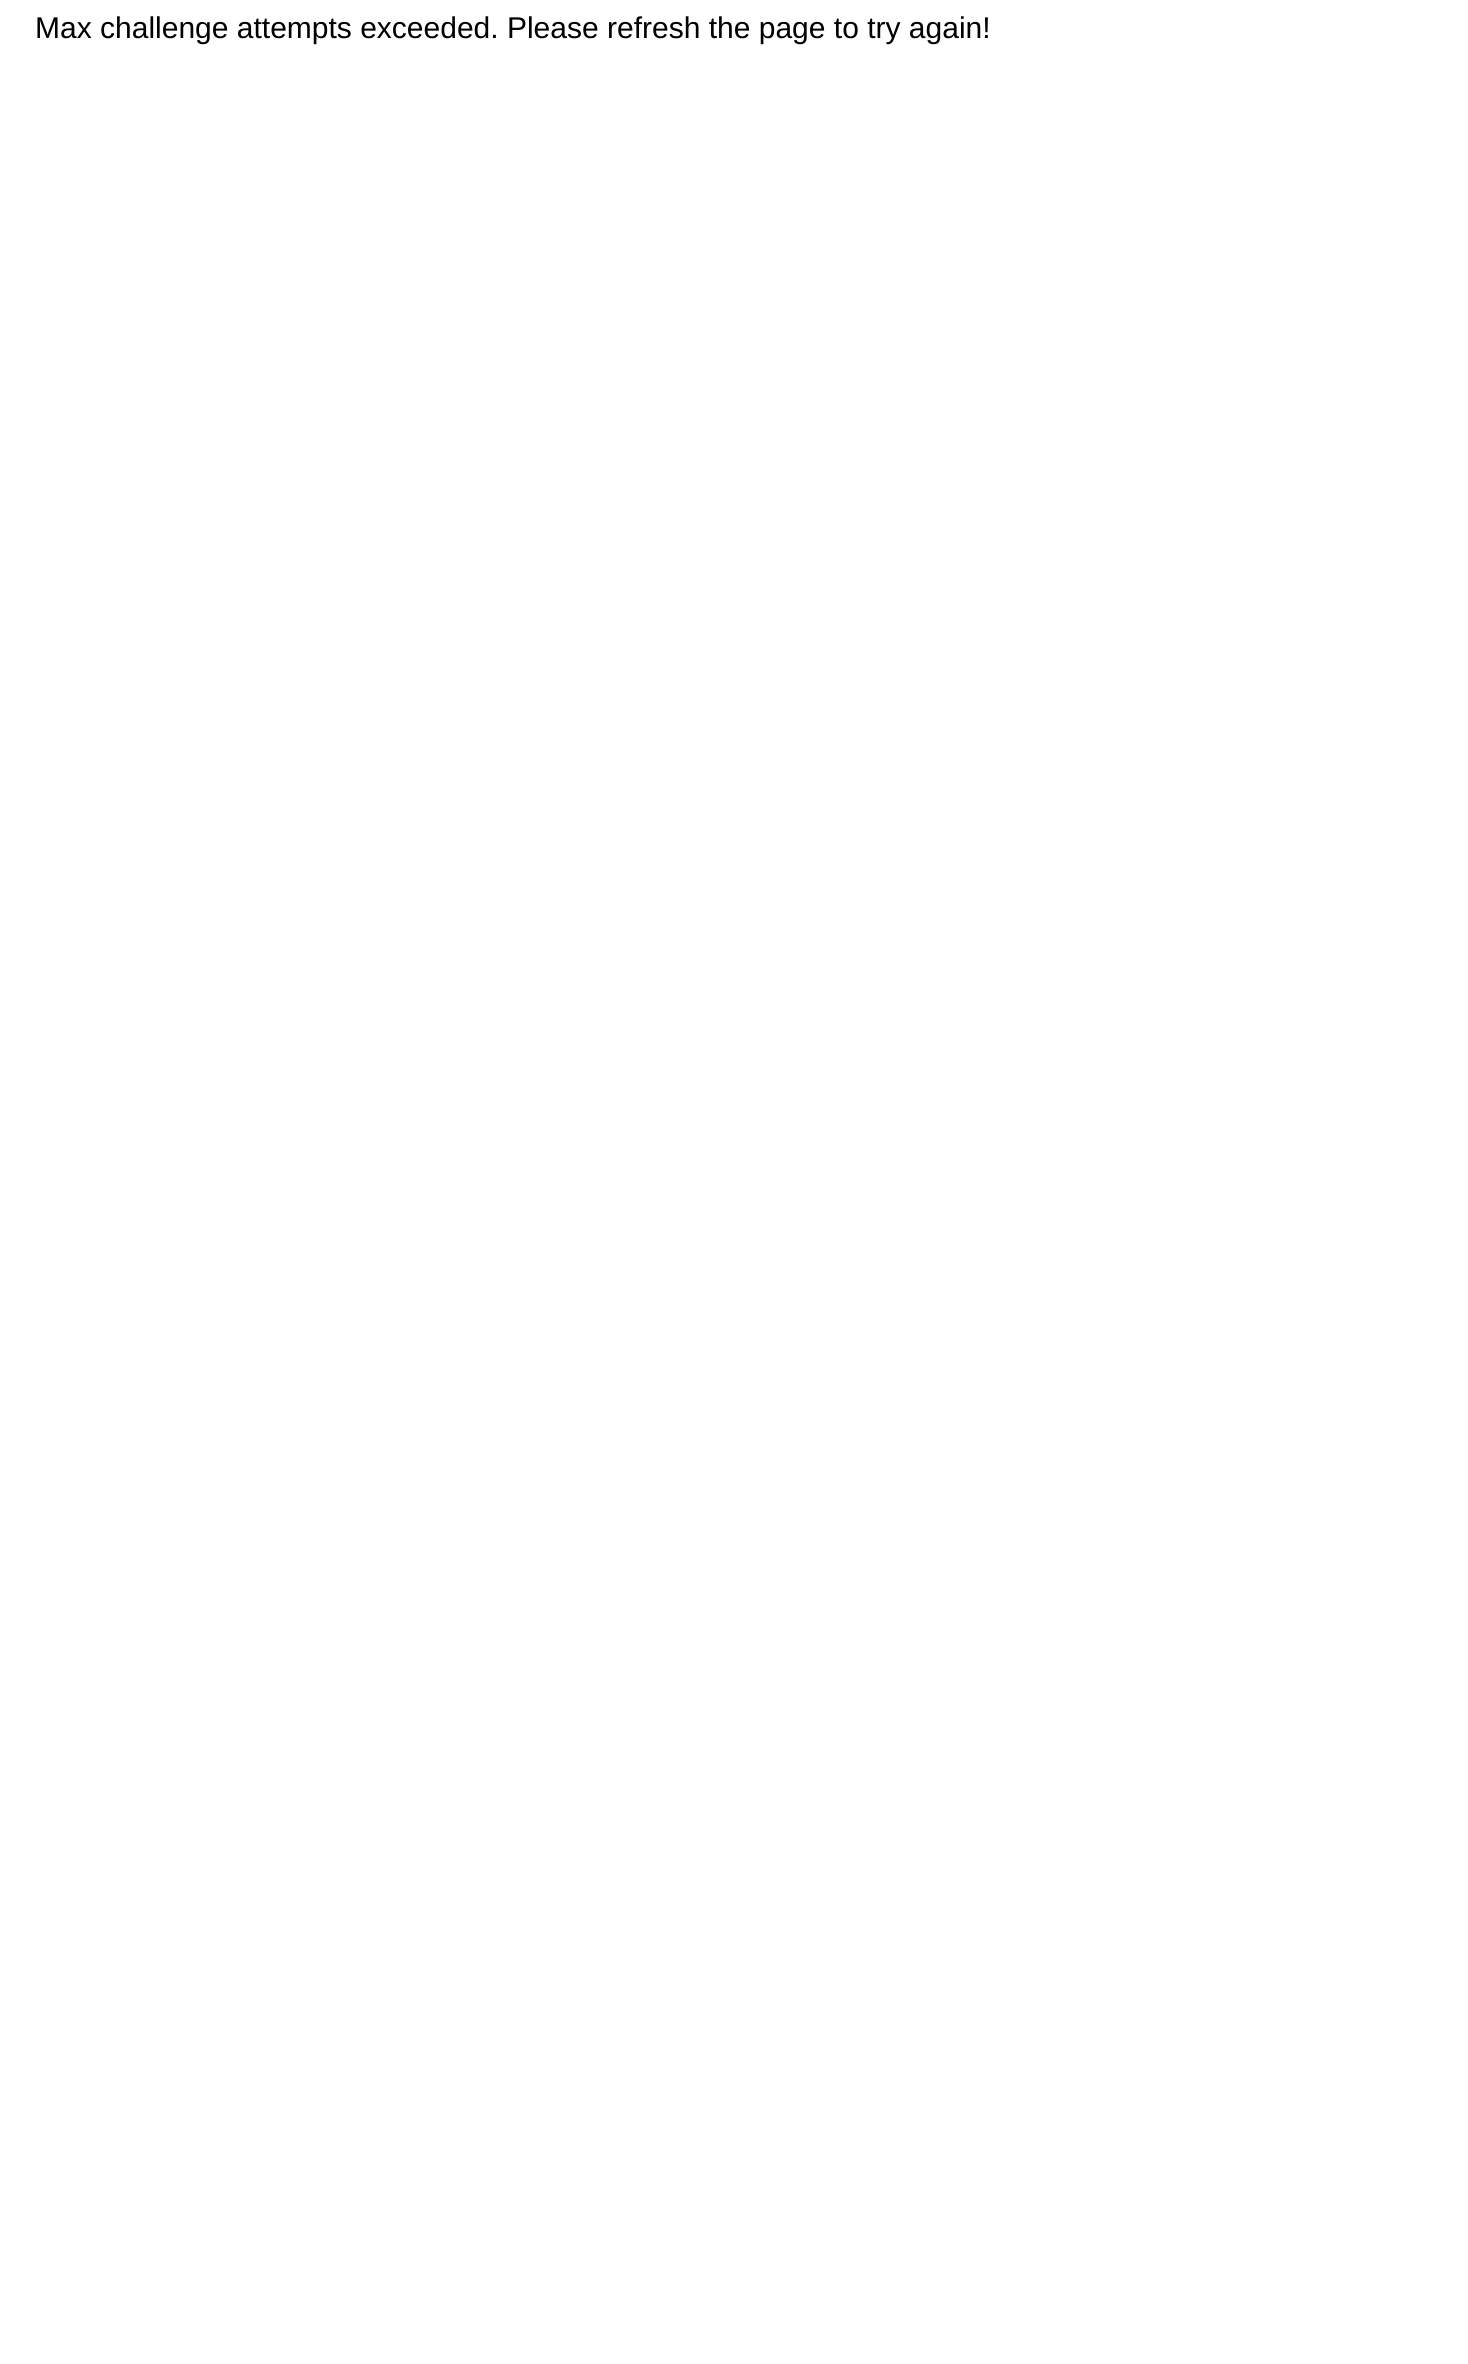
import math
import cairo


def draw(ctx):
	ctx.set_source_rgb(1, 1, 1)
	ctx.paint()
	ctx.select_font_face('Liberation Sans')
	ctx.set_font_size(30)
	ctx.set_source_rgb(0, 0, 0)
	ctx.move_to(35, 38)
	ctx.show_text('Max challenge attempts exceeded. Please refresh the page to try again!')


surface = cairo.ImageSurface(cairo.FORMAT_RGB24, 1468, 2364)
ctx = cairo.Context(surface)
options = cairo.FontOptions()
options.set_hint_metrics(cairo.HINT_METRICS_OFF)
options.set_hint_style(cairo.HINT_STYLE_NONE)
ctx.set_font_options(options)
ctx.set_miter_limit(4)
draw(ctx)
surface.write_to_png('image.png')
